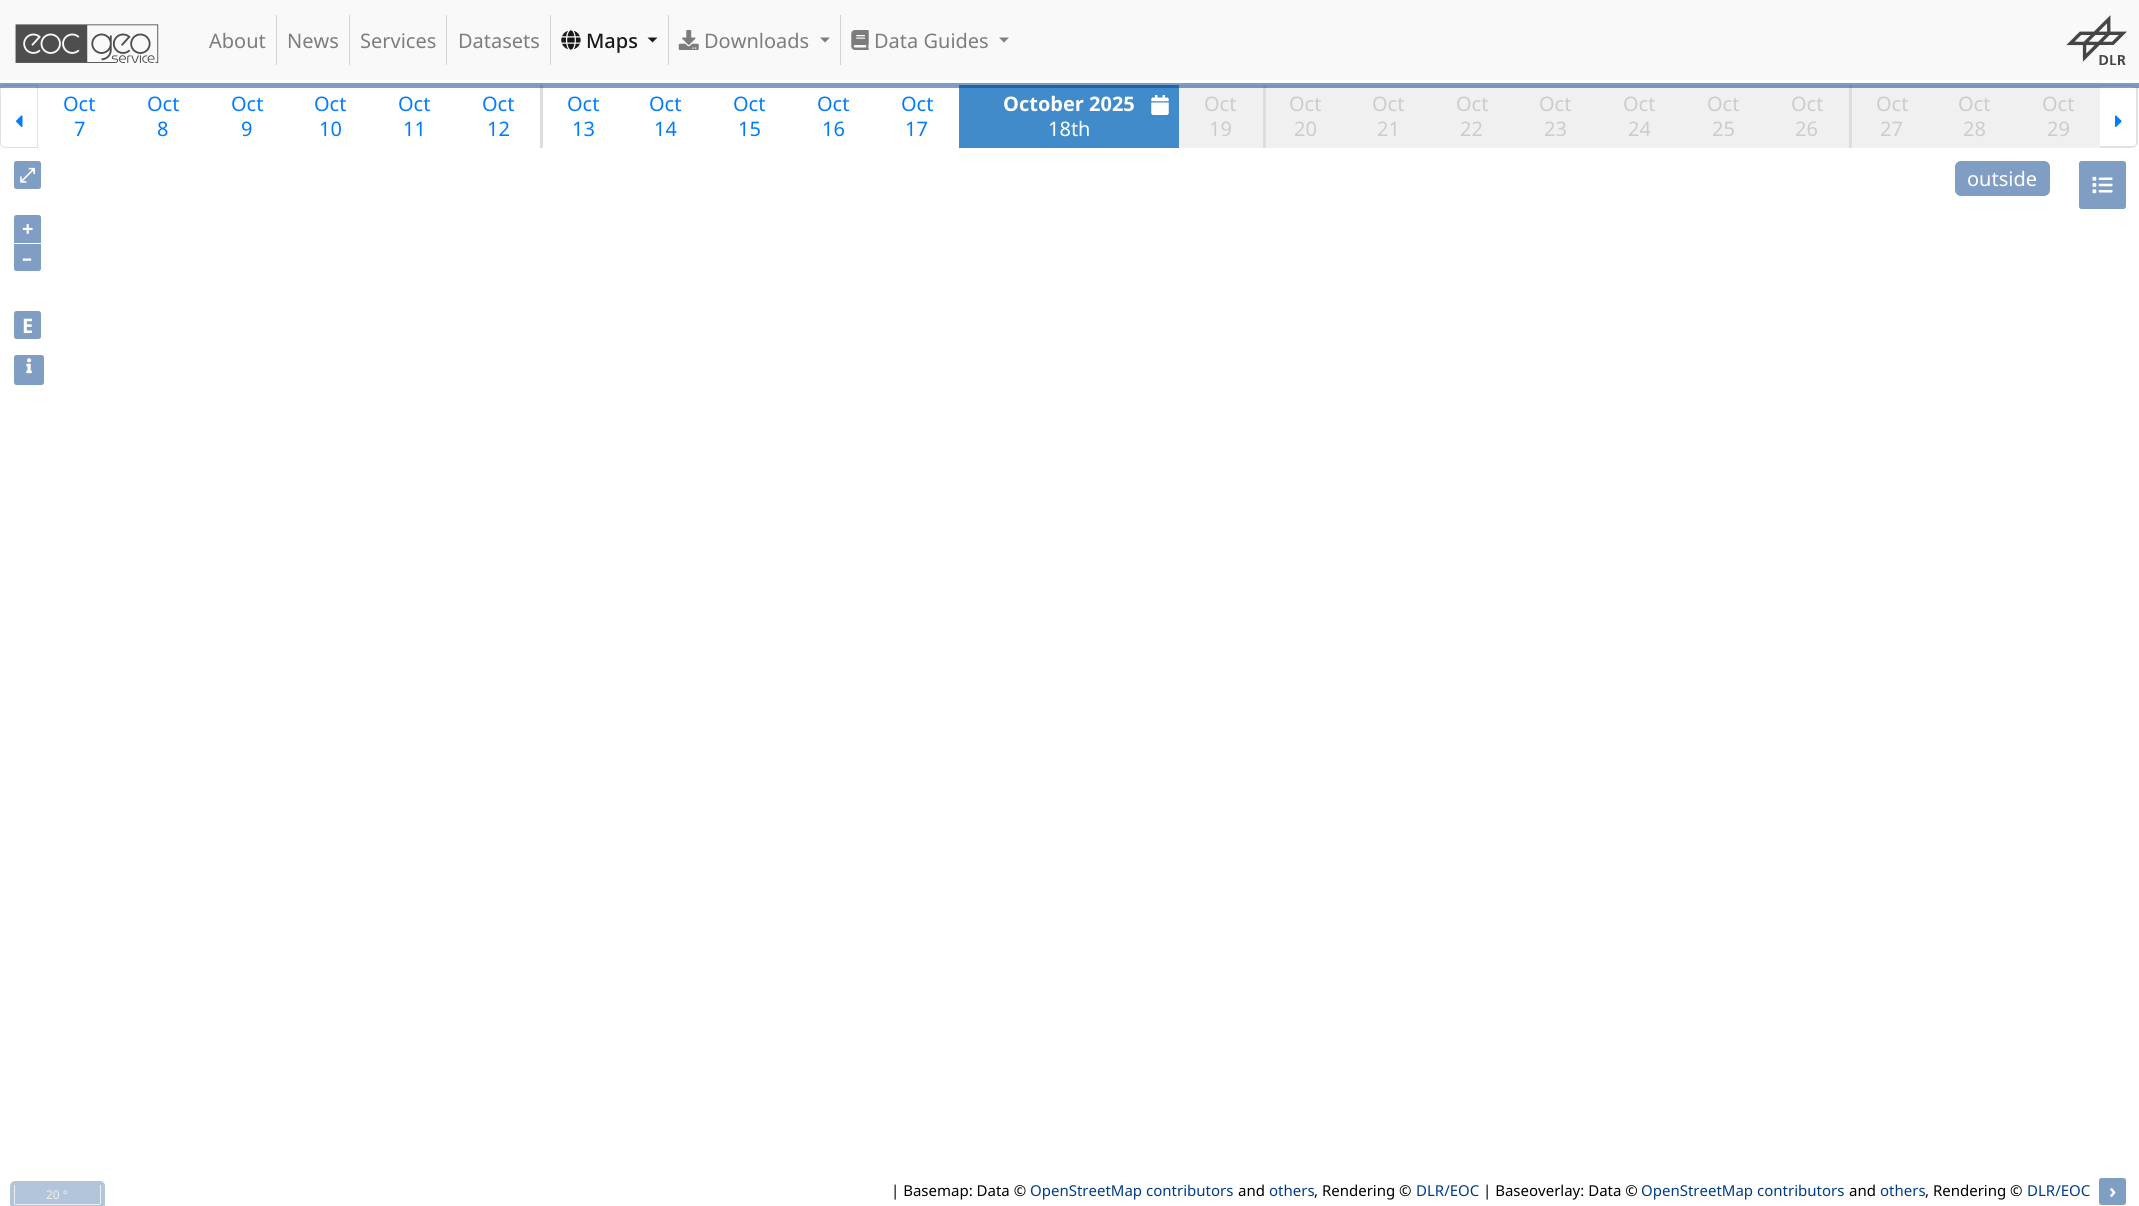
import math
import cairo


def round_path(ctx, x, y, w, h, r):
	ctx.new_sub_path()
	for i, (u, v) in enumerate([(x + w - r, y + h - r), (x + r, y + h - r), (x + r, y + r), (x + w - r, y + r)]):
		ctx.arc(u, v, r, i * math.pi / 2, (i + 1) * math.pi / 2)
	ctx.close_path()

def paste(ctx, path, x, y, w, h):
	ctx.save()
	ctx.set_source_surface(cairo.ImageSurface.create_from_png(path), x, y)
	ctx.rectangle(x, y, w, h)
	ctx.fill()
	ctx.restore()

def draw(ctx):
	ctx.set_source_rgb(1, 1, 1)
	ctx.paint()
	ctx.set_source_rgb(0.973, 0.976, 0.98)
	ctx.rectangle(0, 0, 2139, 80)
	ctx.fill()
	paste(ctx, 'media/1.png', 15, 24, 144, 39)
	ctx.set_source_rgb(0.827, 0.827, 0.827)
	ctx.rectangle(276, 15, 1, 50)
	ctx.fill()
	ctx.select_font_face('Noto Sans')
	ctx.set_font_size(20)
	ctx.set_source_rgb(0.486, 0.49, 0.49)
	ctx.move_to(209, 48)
	ctx.show_text('About')
	ctx.set_source_rgb(0.827, 0.827, 0.827)
	ctx.rectangle(349, 15, 1, 50)
	ctx.fill()
	ctx.set_source_rgb(0.486, 0.49, 0.49)
	ctx.move_to(287, 48)
	ctx.show_text('News')
	ctx.set_source_rgb(0.827, 0.827, 0.827)
	ctx.rectangle(446, 15, 1, 50)
	ctx.fill()
	ctx.set_source_rgb(0.486, 0.49, 0.49)
	ctx.move_to(360, 48)
	ctx.show_text('Services')
	ctx.set_source_rgb(0.827, 0.827, 0.827)
	ctx.rectangle(550, 15, 1, 50)
	ctx.fill()
	ctx.set_source_rgb(0.486, 0.49, 0.49)
	ctx.move_to(458, 48)
	ctx.show_text('Datasets')
	ctx.set_source_rgb(0.827, 0.827, 0.827)
	ctx.rectangle(668, 15, 1, 50)
	ctx.fill()
	paste(ctx, 'media/2.png', 561, 30, 20, 20)
	ctx.select_font_face('Noto Sans Medium')
	ctx.set_source_rgb(0.098, 0.098, 0.098)
	ctx.move_to(586, 48)
	ctx.show_text('Maps')
	ctx.new_path()
	ctx.move_to(647.5, 37.5)
	ctx.line_to(657.5, 37.5)
	ctx.line_to(652.5, 42.5)
	ctx.close_path()
	ctx.fill()
	ctx.set_source_rgb(0.827, 0.827, 0.827)
	ctx.rectangle(840, 15, 1, 50)
	ctx.fill()
	paste(ctx, 'media/3.png', 678, 30, 21, 20)
	ctx.select_font_face('Noto Sans')
	ctx.set_source_rgb(0.486, 0.49, 0.49)
	ctx.move_to(704, 48)
	ctx.show_text('Downloads')
	ctx.new_path()
	ctx.move_to(820, 37.5)
	ctx.line_to(830, 37.5)
	ctx.line_to(825, 42.5)
	ctx.close_path()
	ctx.fill()
	paste(ctx, 'media/4.png', 851, 30, 18, 20)
	ctx.move_to(874, 48)
	ctx.show_text('Data Guides')
	ctx.new_path()
	ctx.move_to(999, 37.5)
	ctx.line_to(1009, 37.5)
	ctx.line_to(1004, 42.5)
	ctx.close_path()
	ctx.fill()
	paste(ctx, 'media/5.png', 2066, 15, 61, 50)
	ctx.new_path()
	ctx.move_to(5, 85.5)
	ctx.line_to(37.5, 85.5)
	ctx.line_to(37.5, 147.5)
	ctx.line_to(5, 147.5)
	ctx.curve_to(2.5, 147.5, 0.5, 145.5, 0.5, 143)
	ctx.line_to(0.5, 90)
	ctx.curve_to(0.5, 87.5, 2.5, 85.5, 5, 85.5)
	ctx.close_path()
	ctx.set_source_rgb(0.871, 0.886, 0.902)
	ctx.set_line_width(1)
	ctx.stroke()
	ctx.set_source_rgb(0.867, 0.867, 0.867)
	ctx.rectangle(540, 85, 3, 63)
	ctx.fill()
	ctx.set_source_rgb(0.259, 0.545, 0.792)
	ctx.rectangle(959, 85, 220, 63)
	ctx.fill()
	ctx.set_source_rgb(0.941, 0.941, 0.941)
	ctx.rectangle(1179, 85, 84, 63)
	ctx.rectangle(1266, 85, 583, 63)
	ctx.fill()
	ctx.set_source_rgb(0.867, 0.867, 0.867)
	ctx.rectangle(1263, 85, 3, 63)
	ctx.fill()
	ctx.set_source_rgb(0.941, 0.941, 0.941)
	ctx.rectangle(1852, 85, 248, 63)
	ctx.fill()
	ctx.set_source_rgb(0.867, 0.867, 0.867)
	ctx.rectangle(1849, 85, 3, 63)
	ctx.fill()
	ctx.set_source_rgb(0.871, 0.886, 0.902)
	ctx.set_fill_rule(cairo.FILL_RULE_EVEN_ODD)
	ctx.new_path()
	ctx.move_to(2100, 85)
	ctx.line_to(2132, 85)
	ctx.curve_to(2135, 85, 2138, 87, 2138, 90)
	ctx.line_to(2138, 142)
	ctx.curve_to(2138, 145, 2135, 148, 2132, 148)
	ctx.line_to(2100, 148)
	ctx.close_path()
	ctx.move_to(2100, 86)
	ctx.line_to(2132, 86)
	ctx.curve_to(2135, 86, 2136, 88, 2136, 90)
	ctx.line_to(2136, 142)
	ctx.curve_to(2136, 145, 2135, 146, 2132, 146)
	ctx.line_to(2100, 146)
	ctx.close_path()
	ctx.fill()
	ctx.set_source_rgba(0, 0.235, 0.533, 0.5)
	ctx.rectangle(0, 83, 2139, 5)
	ctx.fill()
	paste(ctx, 'media/6.png', 15, 115, 8, 12)
	ctx.set_source_rgb(0, 0.482, 1)
	for x, y, s in [
		(63, 111, 'Oct'),
		(74, 136, '7'),
		(147, 111, 'Oct'),
		(157, 136, '8'),
		(231, 111, 'Oct'),
		(241, 136, '9'),
		(314, 111, 'Oct'),
		(319, 136, '10'),
		(398, 111, 'Oct'),
		(403, 136, '11'),
		(482, 111, 'Oct'),
		(487, 136, '12'),
		(567, 111, 'Oct'),
		(572, 136, '13'),
		(649, 111, 'Oct'),
		(654, 136, '14'),
		(733, 111, 'Oct'),
		(738, 136, '15'),
		(817, 111, 'Oct'),
		(822, 136, '16'),
		(901, 111, 'Oct'),
		(905, 136, '17'),
	]:
		ctx.move_to(x, y)
		ctx.show_text(s)
	ctx.select_font_face('Noto Sans', cairo.FONT_SLANT_NORMAL, cairo.FONT_WEIGHT_BOLD)
	ctx.set_source_rgb(1, 1, 1)
	ctx.move_to(1003, 111)
	ctx.show_text('October 2025')
	paste(ctx, 'media/7.png', 1151, 95, 18, 20)
	ctx.select_font_face('Noto Sans')
	ctx.move_to(1048, 136)
	ctx.show_text('18th')
	ctx.set_source_rgb(0.8, 0.8, 0.8)
	for x, y, s in [
		(1204, 111, 'Oct'),
		(1209, 136, '19'),
		(1289, 111, 'Oct'),
		(1294, 136, '20'),
		(1372, 111, 'Oct'),
		(1377, 136, '21'),
		(1456, 111, 'Oct'),
		(1460, 136, '22'),
		(1539, 111, 'Oct'),
		(1544, 136, '23'),
		(1623, 111, 'Oct'),
		(1628, 136, '24'),
		(1707, 111, 'Oct'),
		(1712, 136, '25'),
		(1791, 111, 'Oct'),
		(1795, 136, '26'),
		(1876, 111, 'Oct'),
		(1880, 136, '27'),
		(1958, 111, 'Oct'),
		(1963, 136, '28'),
		(2042, 111, 'Oct'),
		(2047, 136, '29'),
	]:
		ctx.move_to(x, y)
		ctx.show_text(s)
	paste(ctx, 'media/8.png', 2115, 115, 7, 12)
	ctx.set_source_rgb(0.502, 0.62, 0.769)
	round_path(ctx, 14, 161, 27, 28, 2.5)
	ctx.fill()
	ctx.select_font_face('FreeSerif', cairo.FONT_SLANT_NORMAL, cairo.FONT_WEIGHT_BOLD)
	ctx.set_source_rgb(1, 1, 1)
	ctx.move_to(19, 182)
	ctx.show_text('⤢')
	ctx.set_source_rgb(0.502, 0.62, 0.769)
	round_path(ctx, 1955, 161, 95, 35, 6)
	ctx.fill()
	ctx.select_font_face('Noto Sans')
	ctx.set_source_rgb(1, 1, 1)
	ctx.move_to(1967, 186)
	ctx.show_text('outside')
	ctx.set_source_rgb(0.502, 0.62, 0.769)
	round_path(ctx, 2079, 161, 47, 48, 2.5)
	ctx.fill()
	paste(ctx, 'media/9.png', 2092, 176, 21, 18)
	ctx.new_path()
	ctx.move_to(16.5, 215)
	ctx.line_to(38.5, 215)
	ctx.curve_to(40, 215, 41, 216, 41, 217.5)
	ctx.line_to(41, 243)
	ctx.line_to(14, 243)
	ctx.line_to(14, 217.5)
	ctx.curve_to(14, 216, 15, 215, 16.5, 215)
	ctx.close_path()
	ctx.fill()
	ctx.select_font_face('Noto Sans', cairo.FONT_SLANT_NORMAL, cairo.FONT_WEIGHT_BOLD)
	ctx.set_source_rgb(1, 1, 1)
	ctx.move_to(22, 236)
	ctx.show_text('+')
	ctx.set_source_rgb(0.502, 0.62, 0.769)
	ctx.new_path()
	ctx.move_to(14, 244)
	ctx.line_to(41, 244)
	ctx.line_to(41, 268.5)
	ctx.curve_to(41, 270, 40, 271, 38.5, 271)
	ctx.line_to(16.5, 271)
	ctx.curve_to(15, 271, 14, 270, 14, 268.5)
	ctx.close_path()
	ctx.fill()
	ctx.set_source_rgb(1, 1, 1)
	ctx.move_to(22, 265)
	ctx.show_text('–')
	ctx.set_source_rgb(0.502, 0.62, 0.769)
	round_path(ctx, 14, 311, 27, 28, 2.5)
	ctx.fill()
	ctx.set_source_rgb(1, 1, 1)
	ctx.move_to(22, 333)
	ctx.show_text('E')
	ctx.set_source_rgb(0.502, 0.62, 0.769)
	round_path(ctx, 14, 355, 30, 30, 2.5)
	ctx.fill()
	paste(ctx, 'media/10.png', 26, 358, 6, 16)
	ctx.set_source_rgb(0.702, 0.773, 0.859)
	round_path(ctx, 10, 1181, 95, 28, 5)
	ctx.fill()
	ctx.set_source_rgb(0.933, 0.933, 0.933)
	ctx.rectangle(100, 1185, 1, 20)
	ctx.rectangle(14, 1204, 87, 1)
	ctx.rectangle(14, 1185, 1, 20)
	ctx.fill()
	ctx.select_font_face('Noto Sans')
	ctx.set_font_size(12)
	ctx.move_to(46, 1199)
	ctx.show_text('20 °')
	ctx.set_font_size(15)
	ctx.set_source_rgb(0, 0, 0)
	ctx.move_to(891, 1196)
	ctx.show_text('| Basemap: Data ©')
	ctx.set_source_rgb(0, 0.235, 0.533)
	ctx.move_to(1030, 1196)
	ctx.show_text('OpenStreetMap contributors')
	ctx.set_source_rgb(0, 0, 0)
	ctx.move_to(1238, 1196)
	ctx.show_text('and')
	ctx.set_source_rgb(0, 0.235, 0.533)
	ctx.move_to(1269, 1196)
	ctx.show_text('others')
	ctx.set_source_rgb(0, 0, 0)
	ctx.move_to(1314, 1196)
	ctx.show_text(', Rendering ©')
	ctx.set_source_rgb(0, 0.235, 0.533)
	ctx.move_to(1416, 1196)
	ctx.show_text('DLR/EOC')
	ctx.set_source_rgb(0, 0, 0)
	ctx.move_to(1483, 1196)
	ctx.show_text('| Baseoverlay: Data ©')
	ctx.set_source_rgb(0, 0.235, 0.533)
	ctx.move_to(1641, 1196)
	ctx.show_text('OpenStreetMap contributors')
	ctx.set_source_rgb(0, 0, 0)
	ctx.move_to(1849, 1196)
	ctx.show_text('and')
	ctx.set_source_rgb(0, 0.235, 0.533)
	ctx.move_to(1880, 1196)
	ctx.show_text('others')
	ctx.set_source_rgb(0, 0, 0)
	ctx.move_to(1925, 1196)
	ctx.show_text(', Rendering ©')
	ctx.set_source_rgb(0, 0.235, 0.533)
	ctx.move_to(2027, 1196)
	ctx.show_text('DLR/EOC')
	ctx.set_source_rgb(0.502, 0.62, 0.769)
	round_path(ctx, 2099, 1178, 27, 27, 2.5)
	ctx.fill()
	ctx.select_font_face('Noto Sans', cairo.FONT_SLANT_NORMAL, cairo.FONT_WEIGHT_BOLD)
	ctx.set_font_size(20)
	ctx.set_source_rgb(1, 1, 1)
	ctx.move_to(2109, 1198)
	ctx.show_text('›')


surface = cairo.ImageSurface(cairo.FORMAT_RGB24, 2139, 1206)
ctx = cairo.Context(surface)
options = cairo.FontOptions()
options.set_hint_metrics(cairo.HINT_METRICS_OFF)
options.set_hint_style(cairo.HINT_STYLE_NONE)
ctx.set_font_options(options)
ctx.set_miter_limit(4)
draw(ctx)
surface.write_to_png('image.png')
